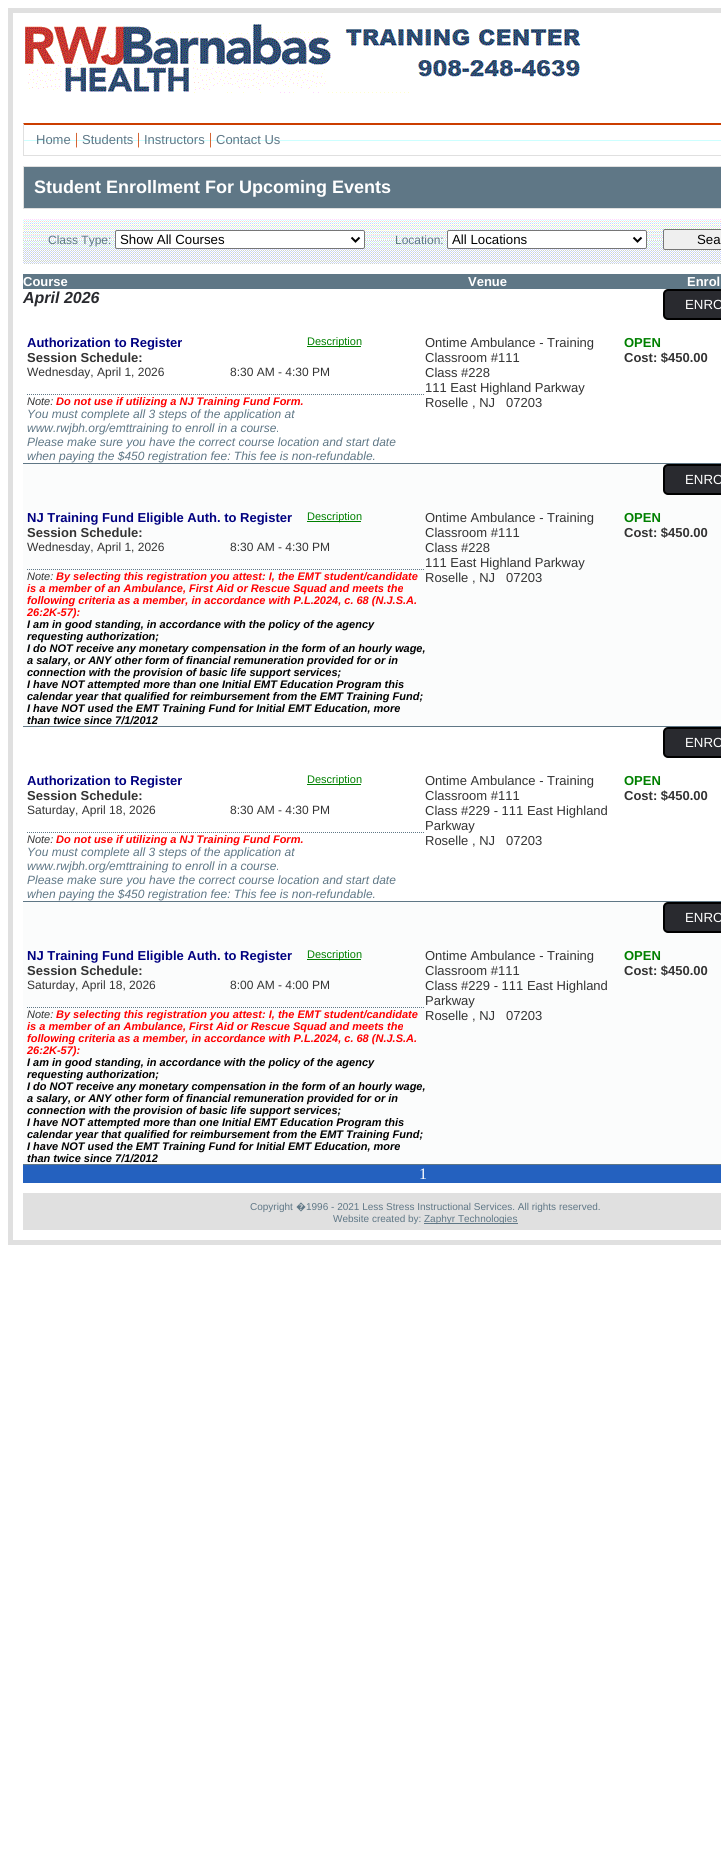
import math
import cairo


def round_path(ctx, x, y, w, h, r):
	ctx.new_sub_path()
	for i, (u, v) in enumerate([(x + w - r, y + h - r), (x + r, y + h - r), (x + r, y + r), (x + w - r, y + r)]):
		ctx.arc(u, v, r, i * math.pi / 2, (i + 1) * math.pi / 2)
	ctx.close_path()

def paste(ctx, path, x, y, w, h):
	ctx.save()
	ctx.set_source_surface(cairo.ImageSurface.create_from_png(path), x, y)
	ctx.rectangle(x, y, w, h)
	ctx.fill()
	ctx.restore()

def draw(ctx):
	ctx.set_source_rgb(1, 1, 1)
	ctx.paint()
	ctx.rectangle(10.5, 10.5, 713, 1232)
	ctx.set_source_rgb(0.878, 0.878, 0.878)
	ctx.set_line_width(5)
	ctx.stroke()
	paste(ctx, 'media/1.png', 25, 24, 556, 69)
	ctx.set_source_rgb(0.8, 1, 1)
	ctx.rectangle(23, 140, 698, 1)
	ctx.fill()
	ctx.set_source_rgb(0.796, 0.243, 0)
	ctx.new_path()
	ctx.move_to(23, 123)
	ctx.line_to(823, 123)
	ctx.line_to(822, 125)
	ctx.line_to(24, 125)
	ctx.close_path()
	ctx.fill()
	ctx.set_source_rgb(0.878, 0.878, 0.878)
	ctx.rectangle(23, 155, 698, 1)
	ctx.fill()
	ctx.new_path()
	ctx.move_to(23, 156)
	ctx.line_to(23, 123)
	ctx.line_to(24, 125)
	ctx.line_to(24, 155)
	ctx.close_path()
	ctx.fill()
	ctx.select_font_face('Liberation Sans')
	ctx.set_font_size(13)
	ctx.set_source_rgb(0.373, 0.467, 0.525)
	ctx.move_to(36, 144)
	ctx.show_text('Home')
	ctx.select_font_face('Liberation Serif')
	ctx.set_font_size(16)
	ctx.set_source_rgb(0.796, 0.243, 0)
	ctx.move_to(75, 144)
	ctx.show_text('|')
	ctx.select_font_face('Liberation Sans')
	ctx.set_font_size(13)
	ctx.set_source_rgb(0.373, 0.467, 0.525)
	ctx.move_to(82, 144)
	ctx.show_text('Students')
	ctx.select_font_face('Liberation Serif')
	ctx.set_font_size(16)
	ctx.set_source_rgb(0.796, 0.243, 0)
	ctx.move_to(137, 144)
	ctx.show_text('|')
	ctx.select_font_face('Liberation Sans')
	ctx.set_font_size(13)
	ctx.set_source_rgb(0.373, 0.467, 0.525)
	ctx.move_to(144, 144)
	ctx.show_text('Instructors')
	ctx.select_font_face('Liberation Serif')
	ctx.set_font_size(16)
	ctx.set_source_rgb(0.796, 0.243, 0)
	ctx.move_to(209, 144)
	ctx.show_text('|')
	ctx.select_font_face('Liberation Sans')
	ctx.set_font_size(13)
	ctx.set_source_rgb(0.373, 0.467, 0.525)
	ctx.move_to(216, 144)
	ctx.show_text('Contact Us')
	ctx.rectangle(23.5, 166.5, 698, 42)
	ctx.fill_preserve()
	ctx.set_source_rgb(0.878, 0.878, 0.878)
	ctx.set_line_width(1)
	ctx.stroke()
	ctx.select_font_face('Liberation Sans', cairo.FONT_SLANT_NORMAL, cairo.FONT_WEIGHT_BOLD)
	ctx.set_font_size(18)
	ctx.set_source_rgb(1, 1, 1)
	ctx.move_to(34, 193)
	ctx.show_text('Student Enrollment For Upcoming Events')
	paste(ctx, 'media/2.png', 23, 219, 698, 45)
	ctx.select_font_face('Liberation Sans')
	ctx.set_font_size(12)
	ctx.set_source_rgb(0.373, 0.467, 0.525)
	ctx.move_to(48, 244)
	ctx.show_text('Class Type:')
	ctx.set_source_rgb(1, 1, 1)
	round_path(ctx, 115.5, 230.5, 249, 18, 1.5)
	ctx.fill_preserve()
	ctx.set_source_rgb(0.463, 0.463, 0.463)
	ctx.stroke()
	ctx.new_path()
	ctx.move_to(351.5, 237.5)
	ctx.line_to(355.5, 241.5)
	ctx.line_to(359.5, 237.5)
	ctx.set_source_rgb(0, 0, 0)
	ctx.set_line_width(2)
	ctx.stroke()
	ctx.set_font_size(13.25)
	ctx.move_to(120, 244)
	ctx.show_text('Show All Courses')
	ctx.set_font_size(12)
	ctx.set_source_rgb(0.373, 0.467, 0.525)
	ctx.move_to(395, 244)
	ctx.show_text('Location:')
	ctx.set_source_rgb(1, 1, 1)
	round_path(ctx, 447.5, 230.5, 199, 18, 1.5)
	ctx.fill_preserve()
	ctx.set_source_rgb(0.463, 0.463, 0.463)
	ctx.set_line_width(1)
	ctx.stroke()
	ctx.new_path()
	ctx.move_to(633.5, 237.5)
	ctx.line_to(637.5, 241.5)
	ctx.line_to(641.5, 237.5)
	ctx.set_source_rgb(0, 0, 0)
	ctx.set_line_width(2)
	ctx.stroke()
	ctx.set_font_size(13.25)
	ctx.move_to(452, 244)
	ctx.show_text('All Locations')
	ctx.set_source_rgb(0.937, 0.937, 0.937)
	round_path(ctx, 663.5, 229.5, 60, 20, 1.5)
	ctx.fill_preserve()
	ctx.set_source_rgb(0.463, 0.463, 0.463)
	ctx.set_line_width(1)
	ctx.stroke()
	ctx.set_source_rgb(0, 0, 0)
	ctx.move_to(697, 244)
	ctx.show_text('Sea')
	ctx.set_source_rgb(0.373, 0.467, 0.525)
	ctx.rectangle(23, 274, 698, 15)
	ctx.fill()
	ctx.select_font_face('Liberation Sans', cairo.FONT_SLANT_NORMAL, cairo.FONT_WEIGHT_BOLD)
	ctx.set_font_size(13)
	ctx.set_source_rgb(1, 1, 1)
	for x, y, s in [
		(23, 286, 'Course'),
		(468, 286, 'Venue'),
		(687, 286, 'Enrol'),
	]:
		ctx.move_to(x, y)
		ctx.show_text(s)
	ctx.set_source_rgb(0.373, 0.467, 0.525)
	ctx.rectangle(23, 463, 698, 1)
	ctx.fill()
	ctx.select_font_face('Liberation Sans', cairo.FONT_SLANT_ITALIC, cairo.FONT_WEIGHT_BOLD)
	ctx.set_font_size(16)
	ctx.set_source_rgb(0.161, 0.165, 0.184)
	ctx.move_to(23, 303)
	ctx.show_text('April 2026')
	round_path(ctx, 664, 290, 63, 29, 4)
	ctx.fill_preserve()
	ctx.set_source_rgb(0, 0, 0)
	ctx.set_line_width(2)
	ctx.stroke()
	ctx.select_font_face('Liberation Sans')
	ctx.set_font_size(13.25)
	ctx.set_source_rgb(1, 1, 1)
	ctx.move_to(685, 309)
	ctx.show_text('ENRO')
	ctx.select_font_face('Liberation Sans', cairo.FONT_SLANT_NORMAL, cairo.FONT_WEIGHT_BOLD)
	ctx.set_font_size(13)
	ctx.set_source_rgb(0, 0, 0.502)
	ctx.move_to(27, 347)
	ctx.show_text('Authorization to Register')
	ctx.set_source_rgb(0, 0.502, 0)
	ctx.rectangle(307, 346, 54, 1)
	ctx.fill()
	ctx.select_font_face('Liberation Sans')
	ctx.set_font_size(11)
	ctx.move_to(307, 345)
	ctx.show_text('Description')
	ctx.select_font_face('Liberation Sans', cairo.FONT_SLANT_NORMAL, cairo.FONT_WEIGHT_BOLD)
	ctx.set_font_size(13)
	ctx.set_source_rgb(0.2, 0.2, 0.2)
	ctx.move_to(27, 362)
	ctx.show_text('Session Schedule:')
	ctx.select_font_face('Liberation Sans')
	ctx.set_font_size(12)
	ctx.move_to(27, 376)
	ctx.show_text('Wednesday, April 1, 2026')
	ctx.move_to(230, 376)
	ctx.show_text('8:30 AM - 4:30 PM')
	ctx.new_path()
	ctx.move_to(27, 394.5)
	ctx.line_to(425, 394.5)
	ctx.set_source_rgb(0.373, 0.467, 0.525)
	ctx.set_line_width(1)
	ctx.set_dash([1, 1])
	ctx.stroke()
	ctx.select_font_face('Liberation Sans', cairo.FONT_SLANT_ITALIC)
	ctx.set_font_size(11)
	ctx.set_source_rgb(0.2, 0.2, 0.2)
	ctx.move_to(27, 405)
	ctx.show_text('Note:')
	ctx.select_font_face('Liberation Sans', cairo.FONT_SLANT_ITALIC, cairo.FONT_WEIGHT_BOLD)
	ctx.set_source_rgb(1, 0, 0)
	ctx.move_to(56, 405)
	ctx.show_text('Do not use if utilizing a NJ Training Fund Form.')
	ctx.select_font_face('Liberation Sans', cairo.FONT_SLANT_ITALIC)
	ctx.set_font_size(12)
	ctx.set_source_rgb(0.373, 0.467, 0.525)
	for x, y, s in [
		(27, 418, 'You must complete all 3 steps of the application at'),
		(27, 432, 'www.rwjbh.org/emttraining to enroll in a course.'),
		(27, 446, 'Please make sure you have the correct course location and start date'),
		(27, 460, 'when paying the $450 registration fee: This fee is non-refundable.'),
	]:
		ctx.move_to(x, y)
		ctx.show_text(s)
	ctx.select_font_face('Liberation Sans')
	ctx.set_font_size(13)
	ctx.set_source_rgb(0.2, 0.2, 0.2)
	for x, y, s in [
		(425, 347, 'Ontime Ambulance - Training'),
		(425, 362, 'Classroom #111'),
		(425, 377, 'Class #228'),
		(425, 392, '111 East Highland Parkway'),
		(425, 407, 'Roselle , NJ'),
		(506, 407, '07203'),
	]:
		ctx.move_to(x, y)
		ctx.show_text(s)
	ctx.select_font_face('Liberation Sans', cairo.FONT_SLANT_NORMAL, cairo.FONT_WEIGHT_BOLD)
	ctx.set_source_rgb(0, 0.502, 0)
	ctx.move_to(624, 347)
	ctx.show_text('OPEN')
	ctx.set_source_rgb(0.2, 0.2, 0.2)
	ctx.move_to(624, 362)
	ctx.show_text('Cost: $450.00')
	ctx.set_source_rgb(0.984, 0.988, 0.988)
	ctx.rectangle(23, 464, 698, 262)
	ctx.fill()
	ctx.set_source_rgb(0.373, 0.467, 0.525)
	ctx.rectangle(23, 726, 698, 1)
	ctx.fill()
	ctx.set_source_rgb(0.161, 0.165, 0.184)
	round_path(ctx, 664, 465, 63, 29, 4)
	ctx.fill_preserve()
	ctx.set_source_rgb(0, 0, 0)
	ctx.set_line_width(2)
	ctx.set_dash([])
	ctx.stroke()
	ctx.select_font_face('Liberation Sans')
	ctx.set_font_size(13.25)
	ctx.set_source_rgb(1, 1, 1)
	ctx.move_to(685, 484)
	ctx.show_text('ENRO')
	ctx.select_font_face('Liberation Sans', cairo.FONT_SLANT_NORMAL, cairo.FONT_WEIGHT_BOLD)
	ctx.set_font_size(13)
	ctx.set_source_rgb(0, 0, 0.502)
	ctx.move_to(27, 522)
	ctx.show_text('NJ Training Fund Eligible Auth. to Register')
	ctx.set_source_rgb(0, 0.502, 0)
	ctx.rectangle(307, 521, 54, 1)
	ctx.fill()
	ctx.select_font_face('Liberation Sans')
	ctx.set_font_size(11)
	ctx.move_to(307, 520)
	ctx.show_text('Description')
	ctx.select_font_face('Liberation Sans', cairo.FONT_SLANT_NORMAL, cairo.FONT_WEIGHT_BOLD)
	ctx.set_font_size(13)
	ctx.set_source_rgb(0.2, 0.2, 0.2)
	ctx.move_to(27, 537)
	ctx.show_text('Session Schedule:')
	ctx.select_font_face('Liberation Sans')
	ctx.set_font_size(12)
	ctx.move_to(27, 551)
	ctx.show_text('Wednesday, April 1, 2026')
	ctx.move_to(230, 551)
	ctx.show_text('8:30 AM - 4:30 PM')
	ctx.new_path()
	ctx.move_to(27, 569.5)
	ctx.line_to(425, 569.5)
	ctx.set_source_rgb(0.373, 0.467, 0.525)
	ctx.set_line_width(1)
	ctx.set_dash([1, 1])
	ctx.stroke()
	ctx.select_font_face('Liberation Sans', cairo.FONT_SLANT_ITALIC)
	ctx.set_font_size(11)
	ctx.set_source_rgb(0.2, 0.2, 0.2)
	ctx.move_to(27, 580)
	ctx.show_text('Note:')
	ctx.select_font_face('Liberation Sans', cairo.FONT_SLANT_ITALIC, cairo.FONT_WEIGHT_BOLD)
	ctx.set_source_rgb(1, 0, 0)
	for x, y, s in [
		(56, 580, 'By selecting this registration you attest: I, the EMT student/candidate'),
		(27, 592, 'is a member of an Ambulance, First Aid or Rescue Squad and meets the'),
		(27, 604, 'following criteria as a member, in accordance with P.L.2024, c. 68 (N.J.S.A.'),
		(27, 616, '26:2K-57):'),
	]:
		ctx.move_to(x, y)
		ctx.show_text(s)
	ctx.set_source_rgb(0, 0, 0)
	for x, y, s in [
		(27, 628, 'I am in good standing, in accordance with the policy of the agency'),
		(27, 640, 'requesting authorization;'),
		(27, 652, 'I do NOT receive any monetary compensation in the form of an hourly wage,'),
		(27, 664, 'a salary, or ANY other form of financial remuneration provided for or in'),
		(27, 676, 'connection with the provision of basic life support services;'),
		(27, 688, 'I have NOT attempted more than one Initial EMT Education Program this'),
		(27, 700, 'calendar year that qualified for reimbursement from the EMT Training Fund;'),
		(27, 712, 'I have NOT used the EMT Training Fund for Initial EMT Education, more'),
		(27, 724, 'than twice since 7/1/2012'),
	]:
		ctx.move_to(x, y)
		ctx.show_text(s)
	ctx.select_font_face('Liberation Sans')
	ctx.set_font_size(13)
	ctx.set_source_rgb(0.2, 0.2, 0.2)
	for x, y, s in [
		(425, 522, 'Ontime Ambulance - Training'),
		(425, 537, 'Classroom #111'),
		(425, 552, 'Class #228'),
		(425, 567, '111 East Highland Parkway'),
		(425, 582, 'Roselle , NJ'),
		(506, 582, '07203'),
	]:
		ctx.move_to(x, y)
		ctx.show_text(s)
	ctx.select_font_face('Liberation Sans', cairo.FONT_SLANT_NORMAL, cairo.FONT_WEIGHT_BOLD)
	ctx.set_source_rgb(0, 0.502, 0)
	ctx.move_to(624, 522)
	ctx.show_text('OPEN')
	ctx.set_source_rgb(0.2, 0.2, 0.2)
	ctx.move_to(624, 537)
	ctx.show_text('Cost: $450.00')
	ctx.set_source_rgb(0.373, 0.467, 0.525)
	ctx.rectangle(23, 901, 698, 1)
	ctx.fill()
	ctx.set_source_rgb(0.161, 0.165, 0.184)
	round_path(ctx, 664, 728, 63, 29, 4)
	ctx.fill_preserve()
	ctx.set_source_rgb(0, 0, 0)
	ctx.set_line_width(2)
	ctx.set_dash([])
	ctx.stroke()
	ctx.select_font_face('Liberation Sans')
	ctx.set_font_size(13.25)
	ctx.set_source_rgb(1, 1, 1)
	ctx.move_to(685, 747)
	ctx.show_text('ENRO')
	ctx.select_font_face('Liberation Sans', cairo.FONT_SLANT_NORMAL, cairo.FONT_WEIGHT_BOLD)
	ctx.set_font_size(13)
	ctx.set_source_rgb(0, 0, 0.502)
	ctx.move_to(27, 785)
	ctx.show_text('Authorization to Register')
	ctx.set_source_rgb(0, 0.502, 0)
	ctx.rectangle(307, 784, 54, 1)
	ctx.fill()
	ctx.select_font_face('Liberation Sans')
	ctx.set_font_size(11)
	ctx.move_to(307, 783)
	ctx.show_text('Description')
	ctx.select_font_face('Liberation Sans', cairo.FONT_SLANT_NORMAL, cairo.FONT_WEIGHT_BOLD)
	ctx.set_font_size(13)
	ctx.set_source_rgb(0.2, 0.2, 0.2)
	ctx.move_to(27, 800)
	ctx.show_text('Session Schedule:')
	ctx.select_font_face('Liberation Sans')
	ctx.set_font_size(12)
	ctx.move_to(27, 814)
	ctx.show_text('Saturday, April 18, 2026')
	ctx.move_to(230, 814)
	ctx.show_text('8:30 AM - 4:30 PM')
	ctx.new_path()
	ctx.move_to(27, 832.5)
	ctx.line_to(425, 832.5)
	ctx.set_source_rgb(0.373, 0.467, 0.525)
	ctx.set_line_width(1)
	ctx.set_dash([1, 1])
	ctx.stroke()
	ctx.select_font_face('Liberation Sans', cairo.FONT_SLANT_ITALIC)
	ctx.set_font_size(11)
	ctx.set_source_rgb(0.2, 0.2, 0.2)
	ctx.move_to(27, 843)
	ctx.show_text('Note:')
	ctx.select_font_face('Liberation Sans', cairo.FONT_SLANT_ITALIC, cairo.FONT_WEIGHT_BOLD)
	ctx.set_source_rgb(1, 0, 0)
	ctx.move_to(56, 843)
	ctx.show_text('Do not use if utilizing a NJ Training Fund Form.')
	ctx.select_font_face('Liberation Sans', cairo.FONT_SLANT_ITALIC)
	ctx.set_font_size(12)
	ctx.set_source_rgb(0.373, 0.467, 0.525)
	for x, y, s in [
		(27, 856, 'You must complete all 3 steps of the application at'),
		(27, 870, 'www.rwjbh.org/emttraining to enroll in a course.'),
		(27, 884, 'Please make sure you have the correct course location and start date'),
		(27, 898, 'when paying the $450 registration fee: This fee is non-refundable.'),
	]:
		ctx.move_to(x, y)
		ctx.show_text(s)
	ctx.select_font_face('Liberation Sans')
	ctx.set_font_size(13)
	ctx.set_source_rgb(0.2, 0.2, 0.2)
	for x, y, s in [
		(425, 785, 'Ontime Ambulance - Training'),
		(425, 800, 'Classroom #111'),
		(425, 815, 'Class #229 - 111 East Highland'),
		(425, 830, 'Parkway'),
		(425, 845, 'Roselle , NJ'),
		(506, 845, '07203'),
	]:
		ctx.move_to(x, y)
		ctx.show_text(s)
	ctx.select_font_face('Liberation Sans', cairo.FONT_SLANT_NORMAL, cairo.FONT_WEIGHT_BOLD)
	ctx.set_source_rgb(0, 0.502, 0)
	ctx.move_to(624, 785)
	ctx.show_text('OPEN')
	ctx.set_source_rgb(0.2, 0.2, 0.2)
	ctx.move_to(624, 800)
	ctx.show_text('Cost: $450.00')
	ctx.set_source_rgb(0.984, 0.988, 0.988)
	ctx.rectangle(23, 902, 698, 262)
	ctx.fill()
	ctx.set_source_rgb(0.373, 0.467, 0.525)
	ctx.rectangle(23, 1164, 698, 1)
	ctx.fill()
	ctx.set_source_rgb(0.161, 0.165, 0.184)
	round_path(ctx, 664, 903, 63, 29, 4)
	ctx.fill_preserve()
	ctx.set_source_rgb(0, 0, 0)
	ctx.set_line_width(2)
	ctx.set_dash([])
	ctx.stroke()
	ctx.select_font_face('Liberation Sans')
	ctx.set_font_size(13.25)
	ctx.set_source_rgb(1, 1, 1)
	ctx.move_to(685, 922)
	ctx.show_text('ENRO')
	ctx.select_font_face('Liberation Sans', cairo.FONT_SLANT_NORMAL, cairo.FONT_WEIGHT_BOLD)
	ctx.set_font_size(13)
	ctx.set_source_rgb(0, 0, 0.502)
	ctx.move_to(27, 960)
	ctx.show_text('NJ Training Fund Eligible Auth. to Register')
	ctx.set_source_rgb(0, 0.502, 0)
	ctx.rectangle(307, 959, 54, 1)
	ctx.fill()
	ctx.select_font_face('Liberation Sans')
	ctx.set_font_size(11)
	ctx.move_to(307, 958)
	ctx.show_text('Description')
	ctx.select_font_face('Liberation Sans', cairo.FONT_SLANT_NORMAL, cairo.FONT_WEIGHT_BOLD)
	ctx.set_font_size(13)
	ctx.set_source_rgb(0.2, 0.2, 0.2)
	ctx.move_to(27, 975)
	ctx.show_text('Session Schedule:')
	ctx.select_font_face('Liberation Sans')
	ctx.set_font_size(12)
	ctx.move_to(27, 989)
	ctx.show_text('Saturday, April 18, 2026')
	ctx.move_to(230, 989)
	ctx.show_text('8:00 AM - 4:00 PM')
	ctx.new_path()
	ctx.move_to(27, 1007.5)
	ctx.line_to(425, 1007.5)
	ctx.set_source_rgb(0.373, 0.467, 0.525)
	ctx.set_line_width(1)
	ctx.set_dash([1, 1])
	ctx.stroke()
	ctx.select_font_face('Liberation Sans', cairo.FONT_SLANT_ITALIC)
	ctx.set_font_size(11)
	ctx.set_source_rgb(0.2, 0.2, 0.2)
	ctx.move_to(27, 1018)
	ctx.show_text('Note:')
	ctx.select_font_face('Liberation Sans', cairo.FONT_SLANT_ITALIC, cairo.FONT_WEIGHT_BOLD)
	ctx.set_source_rgb(1, 0, 0)
	for x, y, s in [
		(56, 1018, 'By selecting this registration you attest: I, the EMT student/candidate'),
		(27, 1030, 'is a member of an Ambulance, First Aid or Rescue Squad and meets the'),
		(27, 1042, 'following criteria as a member, in accordance with P.L.2024, c. 68 (N.J.S.A.'),
		(27, 1054, '26:2K-57):'),
	]:
		ctx.move_to(x, y)
		ctx.show_text(s)
	ctx.set_source_rgb(0, 0, 0)
	for x, y, s in [
		(27, 1066, 'I am in good standing, in accordance with the policy of the agency'),
		(27, 1078, 'requesting authorization;'),
		(27, 1090, 'I do NOT receive any monetary compensation in the form of an hourly wage,'),
		(27, 1102, 'a salary, or ANY other form of financial remuneration provided for or in'),
		(27, 1114, 'connection with the provision of basic life support services;'),
		(27, 1126, 'I have NOT attempted more than one Initial EMT Education Program this'),
		(27, 1138, 'calendar year that qualified for reimbursement from the EMT Training Fund;'),
		(27, 1150, 'I have NOT used the EMT Training Fund for Initial EMT Education, more'),
		(27, 1162, 'than twice since 7/1/2012'),
	]:
		ctx.move_to(x, y)
		ctx.show_text(s)
	ctx.select_font_face('Liberation Sans')
	ctx.set_font_size(13)
	ctx.set_source_rgb(0.2, 0.2, 0.2)
	for x, y, s in [
		(425, 960, 'Ontime Ambulance - Training'),
		(425, 975, 'Classroom #111'),
		(425, 990, 'Class #229 - 111 East Highland'),
		(425, 1005, 'Parkway'),
		(425, 1020, 'Roselle , NJ'),
		(506, 1020, '07203'),
	]:
		ctx.move_to(x, y)
		ctx.show_text(s)
	ctx.select_font_face('Liberation Sans', cairo.FONT_SLANT_NORMAL, cairo.FONT_WEIGHT_BOLD)
	ctx.set_source_rgb(0, 0.502, 0)
	ctx.move_to(624, 960)
	ctx.show_text('OPEN')
	ctx.set_source_rgb(0.2, 0.2, 0.2)
	ctx.move_to(624, 975)
	ctx.show_text('Cost: $450.00')
	ctx.set_source_rgb(0.141, 0.38, 0.749)
	ctx.rectangle(23, 1165, 698, 18)
	ctx.fill()
	ctx.select_font_face('Liberation Serif')
	ctx.set_font_size(16)
	ctx.set_source_rgb(1, 1, 1)
	ctx.move_to(419, 1179)
	ctx.show_text('1')
	ctx.set_source_rgb(0.878, 0.878, 0.878)
	ctx.rectangle(23, 1193, 698, 37)
	ctx.fill()
	ctx.select_font_face('Liberation Sans')
	ctx.set_font_size(10)
	ctx.set_source_rgb(0.373, 0.467, 0.525)
	ctx.move_to(250, 1210)
	ctx.show_text('Copyright')
	ctx.select_font_face('Noto Sans')
	ctx.move_to(296, 1210)
	ctx.show_text('�')
	ctx.select_font_face('Liberation Sans')
	ctx.move_to(306, 1210)
	ctx.show_text('1996 - 2021 Less Stress Instructional Services. All rights reserved.')
	ctx.move_to(333, 1222)
	ctx.show_text('Website created by:')
	ctx.rectangle(424, 1223, 94, 1)
	ctx.fill()
	ctx.move_to(424, 1222)
	ctx.show_text('Zaphyr Technologies')


surface = cairo.ImageSurface(cairo.FORMAT_RGB24, 721, 1849)
ctx = cairo.Context(surface)
options = cairo.FontOptions()
options.set_hint_metrics(cairo.HINT_METRICS_OFF)
options.set_hint_style(cairo.HINT_STYLE_NONE)
ctx.set_font_options(options)
ctx.set_miter_limit(4)
draw(ctx)
surface.write_to_png('image.png')
